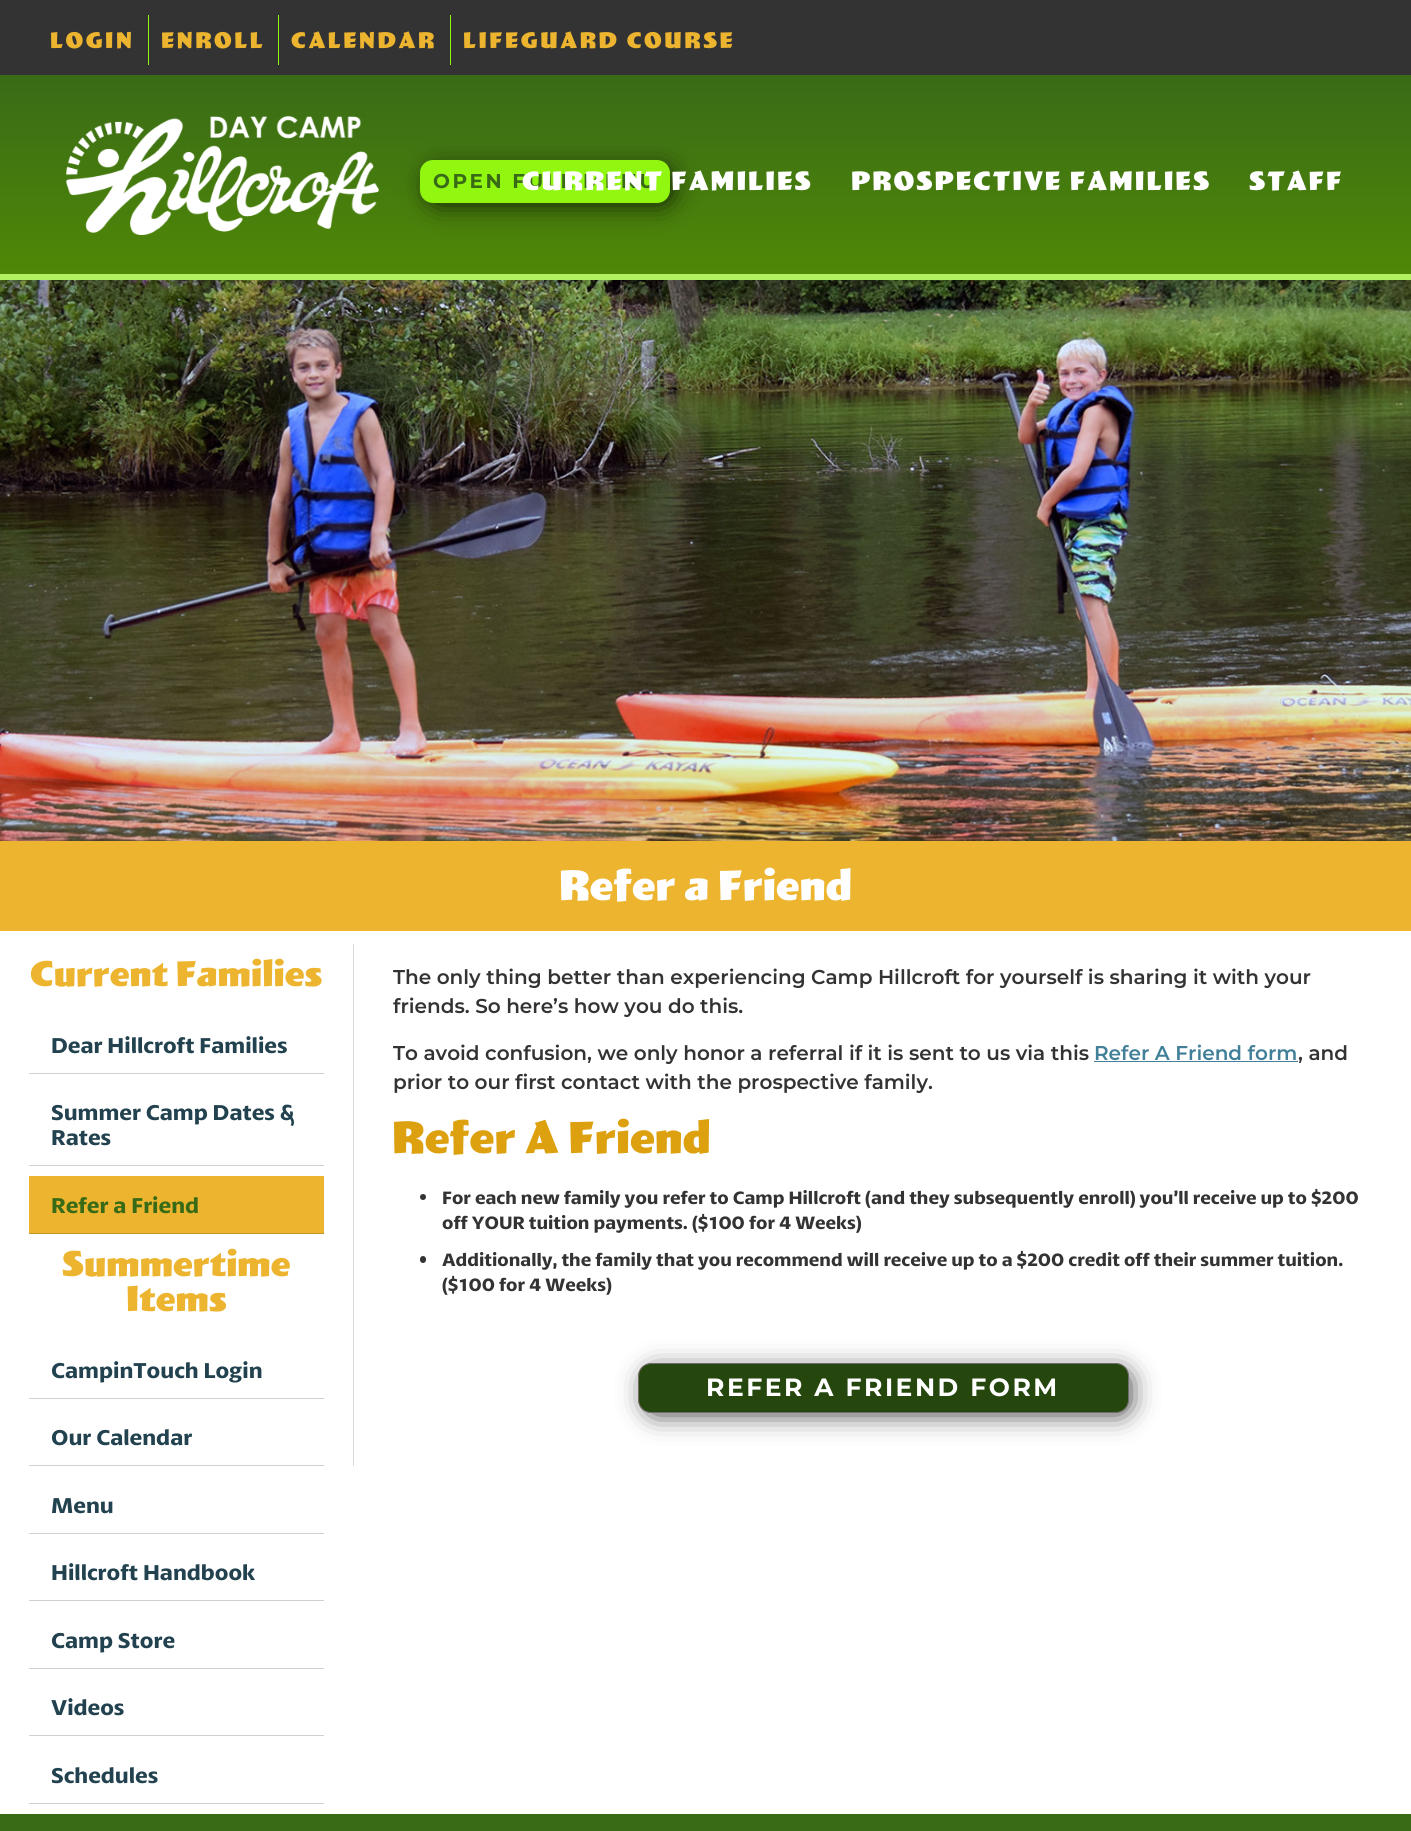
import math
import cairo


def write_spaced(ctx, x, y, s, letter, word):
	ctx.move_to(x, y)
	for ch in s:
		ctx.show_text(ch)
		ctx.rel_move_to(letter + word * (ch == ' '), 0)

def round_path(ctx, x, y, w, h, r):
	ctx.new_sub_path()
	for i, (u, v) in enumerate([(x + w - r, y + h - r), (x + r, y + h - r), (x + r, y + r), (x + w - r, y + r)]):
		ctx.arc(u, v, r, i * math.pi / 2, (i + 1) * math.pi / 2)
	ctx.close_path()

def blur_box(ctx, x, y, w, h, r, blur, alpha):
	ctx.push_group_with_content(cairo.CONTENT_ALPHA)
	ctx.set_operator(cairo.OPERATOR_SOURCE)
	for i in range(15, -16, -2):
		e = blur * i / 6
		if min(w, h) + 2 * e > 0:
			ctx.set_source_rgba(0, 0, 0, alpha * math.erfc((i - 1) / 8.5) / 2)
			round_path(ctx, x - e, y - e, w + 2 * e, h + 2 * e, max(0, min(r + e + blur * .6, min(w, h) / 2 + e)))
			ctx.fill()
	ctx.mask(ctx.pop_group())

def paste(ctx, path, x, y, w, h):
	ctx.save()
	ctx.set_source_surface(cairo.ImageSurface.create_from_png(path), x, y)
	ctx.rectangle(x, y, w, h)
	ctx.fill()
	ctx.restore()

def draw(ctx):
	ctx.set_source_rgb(1, 1, 1)
	ctx.paint()
	ctx.set_source_rgb(0.2, 0.2, 0.2)
	ctx.rectangle(0, 0, 1411, 75)
	ctx.fill()
	ctx.set_source_rgb(0.569, 0.965, 0.067)
	ctx.rectangle(148, 15, 1, 50)
	ctx.fill()
	ctx.select_font_face('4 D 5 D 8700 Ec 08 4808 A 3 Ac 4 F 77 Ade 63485', cairo.FONT_SLANT_NORMAL, cairo.FONT_WEIGHT_BOLD)
	ctx.set_font_size(21.25)
	ctx.set_source_rgb(0.925, 0.706, 0.184)
	write_spaced(ctx, 50, 48, 'LOGIN', 2.5, 0)
	ctx.set_source_rgb(0.569, 0.965, 0.067)
	ctx.rectangle(278, 15, 1, 50)
	ctx.fill()
	ctx.set_source_rgb(0.925, 0.706, 0.184)
	write_spaced(ctx, 161, 48, 'ENROLL', 2.5, 0)
	ctx.set_source_rgb(0.569, 0.965, 0.067)
	ctx.rectangle(450, 15, 1, 50)
	ctx.fill()
	ctx.set_source_rgb(0.925, 0.706, 0.184)
	write_spaced(ctx, 291, 48, 'CALENDAR', 2.5, 0)
	write_spaced(ctx, 463, 48, 'LIFEGUARD COURSE', 2.5, 0)
	gradient = cairo.LinearGradient(706, 75, 706, 274)
	gradient.add_color_stop_rgba(0, 0.224, 0.42, 0.09, 1)
	gradient.add_color_stop_rgba(1, 0.31, 0.533, 0.027, 1)
	ctx.set_source(gradient)
	ctx.rectangle(0, 75, 1411, 199)
	ctx.fill()
	ctx.set_source_rgb(0, 0, 0)
	blur_box(ctx, 433, 173, 235, 27, 5, 14.5, 1)
	ctx.set_source_rgb(0.569, 0.965, 0.067)
	round_path(ctx, 420, 160, 250, 43, 13)
	ctx.fill()
	ctx.select_font_face('Montserrat', cairo.FONT_SLANT_NORMAL, cairo.FONT_WEIGHT_BOLD)
	ctx.set_font_size(20)
	ctx.set_source_rgb(0.224, 0.42, 0.09)
	write_spaced(ctx, 433, 188, 'OPEN FULL MENU', 2.5, 0)
	ctx.select_font_face('4 D 5 D 8700 Ec 08 4808 A 3 Ac 4 F 77 Ade 63485', cairo.FONT_SLANT_NORMAL, cairo.FONT_WEIGHT_BOLD)
	ctx.set_font_size(25)
	ctx.set_source_rgb(1, 1, 1)
	for x, y, s in [
		(522, 190, 'CURRENT FAMILIES'),
		(851, 190, 'PROSPECTIVE FAMILIES'),
		(1249, 190, 'STAFF'),
	]:
		write_spaced(ctx, x, y, s, 1.9, 0)
	ctx.set_source_rgb(0.694, 0.941, 0.38)
	ctx.rectangle(0, 274, 1411, 6)
	ctx.fill()
	paste(ctx, 'media/1.png', 66, 116, 313, 119)
	paste(ctx, 'media/2.png', 0, 280, 1411, 561)
	ctx.set_source_rgb(0.925, 0.706, 0.184)
	ctx.rectangle(0, 841, 1411, 90)
	ctx.fill()
	ctx.set_font_size(40)
	ctx.set_source_rgb(1, 1, 1)
	ctx.move_to(559, 900)
	ctx.show_text('Refer a Friend')
	ctx.set_font_size(33.75)
	ctx.set_source_rgb(0.925, 0.706, 0.184)
	ctx.move_to(30, 986)
	ctx.show_text('Current Families')
	ctx.set_source_rgb(0.82, 0.82, 0.82)
	ctx.rectangle(29, 1073, 295, 1)
	ctx.fill()
	ctx.select_font_face('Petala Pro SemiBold')
	ctx.set_font_size(22.5)
	ctx.set_source_rgb(0.133, 0.259, 0.31)
	ctx.move_to(51, 1053)
	ctx.show_text('Dear Hillcroft Families')
	ctx.set_source_rgb(0.82, 0.82, 0.82)
	ctx.rectangle(29, 1165, 295, 1)
	ctx.fill()
	ctx.set_source_rgb(0.133, 0.259, 0.31)
	ctx.move_to(51, 1120)
	ctx.show_text('Summer Camp Dates &')
	ctx.move_to(51, 1145)
	ctx.show_text('Rates')
	ctx.set_source_rgb(0.925, 0.706, 0.184)
	ctx.rectangle(29, 1176, 295, 57)
	ctx.fill()
	ctx.set_source_rgb(0.761, 0.58, 0.153)
	ctx.rectangle(29, 1233, 295, 1)
	ctx.fill()
	ctx.set_source_rgb(0.224, 0.42, 0.09)
	ctx.move_to(51, 1213)
	ctx.show_text('Refer a Friend')
	ctx.select_font_face('4 D 5 D 8700 Ec 08 4808 A 3 Ac 4 F 77 Ade 63485', cairo.FONT_SLANT_NORMAL, cairo.FONT_WEIGHT_BOLD)
	ctx.set_font_size(33.75)
	ctx.set_source_rgb(0.925, 0.706, 0.184)
	ctx.move_to(62, 1276)
	ctx.show_text('Summertime')
	ctx.move_to(126, 1311)
	ctx.show_text('Items')
	ctx.set_source_rgb(0.82, 0.82, 0.82)
	ctx.rectangle(29, 1398, 295, 1)
	ctx.fill()
	ctx.select_font_face('Petala Pro SemiBold')
	ctx.set_font_size(22.5)
	ctx.set_source_rgb(0.133, 0.259, 0.31)
	ctx.move_to(51, 1378)
	ctx.show_text('CampinTouch Login')
	ctx.set_source_rgb(0.82, 0.82, 0.82)
	ctx.rectangle(29, 1465, 295, 1)
	ctx.fill()
	ctx.set_source_rgb(0.133, 0.259, 0.31)
	ctx.move_to(51, 1445)
	ctx.show_text('Our Calendar')
	ctx.set_source_rgb(0.82, 0.82, 0.82)
	ctx.rectangle(29, 1533, 295, 1)
	ctx.fill()
	ctx.set_source_rgb(0.133, 0.259, 0.31)
	ctx.move_to(51, 1513)
	ctx.show_text('Menu')
	ctx.set_source_rgb(0.82, 0.82, 0.82)
	ctx.rectangle(29, 1600, 295, 1)
	ctx.fill()
	ctx.set_source_rgb(0.133, 0.259, 0.31)
	ctx.move_to(51, 1580)
	ctx.show_text('Hillcroft Handbook')
	ctx.set_source_rgb(0.82, 0.82, 0.82)
	ctx.rectangle(29, 1668, 295, 1)
	ctx.fill()
	ctx.set_source_rgb(0.133, 0.259, 0.31)
	ctx.move_to(51, 1648)
	ctx.show_text('Camp Store')
	ctx.set_source_rgb(0.82, 0.82, 0.82)
	ctx.rectangle(29, 1735, 295, 1)
	ctx.fill()
	ctx.set_source_rgb(0.133, 0.259, 0.31)
	ctx.move_to(51, 1715)
	ctx.show_text('Videos')
	ctx.set_source_rgb(0.82, 0.82, 0.82)
	ctx.rectangle(29, 1803, 295, 1)
	ctx.fill()
	ctx.set_source_rgb(0.133, 0.259, 0.31)
	ctx.move_to(51, 1783)
	ctx.show_text('Schedules')
	ctx.set_source_rgb(0.851, 0.851, 0.851)
	ctx.rectangle(353, 944, 1, 522)
	ctx.fill()
	ctx.select_font_face('Montserrat SemiBold')
	ctx.set_font_size(20)
	ctx.set_source_rgb(0.2, 0.2, 0.2)
	for x, y, s in [
		(393, 984, 'The only thing better than experiencing Camp Hillcroft for yourself is sharing it with your'),
		(393, 1013, 'friends. So here’s how you do this.'),
		(393, 1060, 'To avoid confusion, we only honor a referral if it is sent to us via this'),
	]:
		ctx.move_to(x, y)
		ctx.show_text(s)
	ctx.set_source_rgb(0.259, 0.502, 0.6)
	ctx.move_to(1094, 1060)
	ctx.show_text('Refer A Friend form')
	ctx.rectangle(1094, 1061, 204, 1)
	ctx.fill()
	ctx.set_source_rgb(0.2, 0.2, 0.2)
	ctx.move_to(1298, 1060)
	ctx.show_text(', and')
	ctx.move_to(393, 1089)
	ctx.show_text('prior to our first contact with the prospective family.')
	ctx.select_font_face('4 D 5 D 8700 Ec 08 4808 A 3 Ac 4 F 77 Ade 63485', cairo.FONT_SLANT_NORMAL, cairo.FONT_WEIGHT_BOLD)
	ctx.set_font_size(42.5)
	ctx.set_source_rgb(0.867, 0.627, 0.055)
	ctx.move_to(392, 1153)
	ctx.show_text('Refer A Friend')
	ctx.set_source_rgb(0.2, 0.2, 0.2)
	ctx.new_path()
	ctx.arc(423, 1197, 3, 0, 2 * math.pi)
	ctx.fill()
	ctx.select_font_face('Petala Pro SemiBold')
	ctx.set_font_size(18.75)
	ctx.move_to(442, 1204)
	ctx.show_text('For each new family you refer to Camp Hillcroft (and they subsequently enroll) you’ll receive up to $200')
	ctx.move_to(442, 1229)
	ctx.show_text('off YOUR tuition payments. ($100 for 4 Weeks)')
	round_path(ctx, 420, 1256, 6, 7, 3)
	ctx.fill()
	ctx.move_to(442, 1266)
	ctx.show_text('Additionally, the family that you recommend will receive up to a $200 credit off their summer tuition.')
	ctx.move_to(442, 1291)
	ctx.show_text('($100 for 4 Weeks)')
	ctx.set_source_rgb(0, 0, 0)
	blur_box(ctx, 650, 1375, 476, 35, 5, 14.5, 1)
	ctx.set_source_rgb(0.145, 0.278, 0.055)
	round_path(ctx, 638.5, 1363.5, 490, 49, 12.5)
	ctx.fill_preserve()
	ctx.set_source_rgb(0.447, 0.424, 0.424)
	ctx.set_line_width(1)
	ctx.stroke()
	ctx.select_font_face('Montserrat', cairo.FONT_SLANT_NORMAL, cairo.FONT_WEIGHT_BOLD)
	ctx.set_font_size(25)
	ctx.set_source_rgb(1, 1, 1)
	write_spaced(ctx, 706, 1396, 'REFER A FRIEND FORM', 2.5, 0)
	ctx.set_source_rgb(0.224, 0.42, 0.09)
	ctx.rectangle(0, 1814, 1411, 17)
	ctx.fill()


surface = cairo.ImageSurface(cairo.FORMAT_RGB24, 1411, 1831)
ctx = cairo.Context(surface)
options = cairo.FontOptions()
options.set_hint_metrics(cairo.HINT_METRICS_OFF)
options.set_hint_style(cairo.HINT_STYLE_NONE)
ctx.set_font_options(options)
ctx.set_miter_limit(4)
draw(ctx)
surface.write_to_png('image.png')
